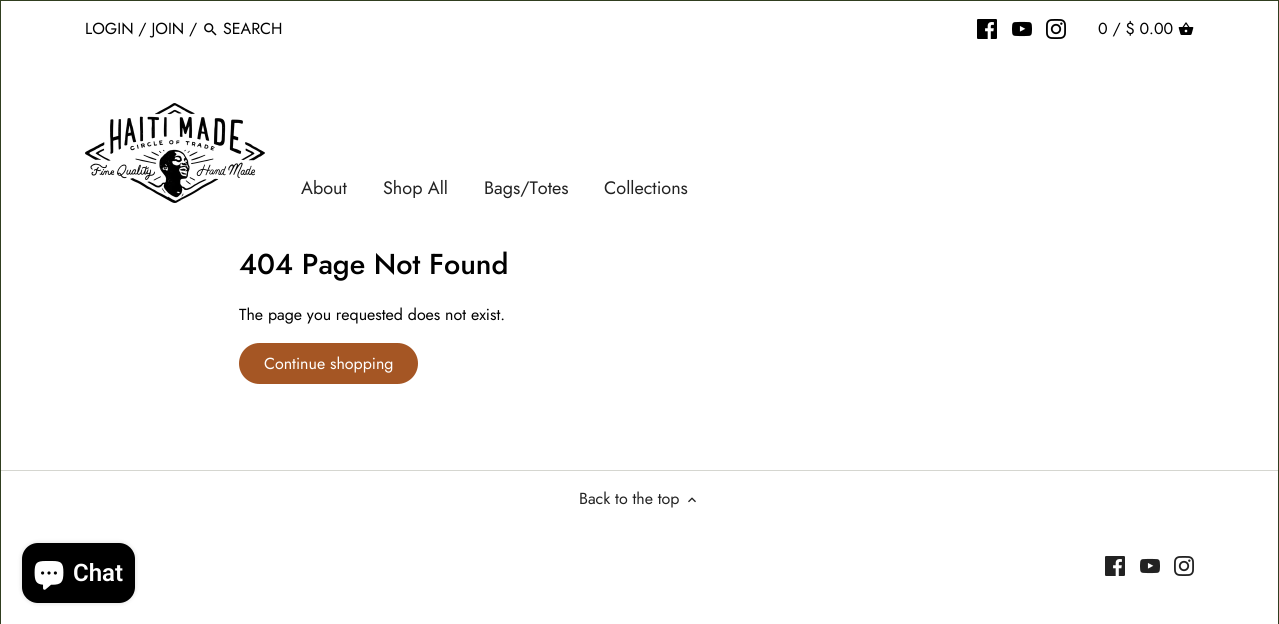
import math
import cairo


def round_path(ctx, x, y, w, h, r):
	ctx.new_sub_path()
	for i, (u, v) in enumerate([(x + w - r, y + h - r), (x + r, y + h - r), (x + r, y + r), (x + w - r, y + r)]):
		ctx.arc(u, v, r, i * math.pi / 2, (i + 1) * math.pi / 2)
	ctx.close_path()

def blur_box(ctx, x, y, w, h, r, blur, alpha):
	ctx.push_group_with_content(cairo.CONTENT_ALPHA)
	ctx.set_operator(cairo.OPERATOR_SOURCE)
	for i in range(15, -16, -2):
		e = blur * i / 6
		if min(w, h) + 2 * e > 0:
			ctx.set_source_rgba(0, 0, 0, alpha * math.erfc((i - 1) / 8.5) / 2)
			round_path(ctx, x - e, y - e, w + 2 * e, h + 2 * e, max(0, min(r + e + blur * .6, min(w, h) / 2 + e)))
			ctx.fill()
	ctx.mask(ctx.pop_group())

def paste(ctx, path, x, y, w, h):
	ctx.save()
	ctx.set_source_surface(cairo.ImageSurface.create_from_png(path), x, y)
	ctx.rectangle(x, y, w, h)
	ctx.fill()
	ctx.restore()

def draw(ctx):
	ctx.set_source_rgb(1, 1, 1)
	ctx.paint()
	ctx.rectangle(0.5, 0.5, 1278, 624)
	ctx.set_source_rgb(0.188, 0.243, 0.122)
	ctx.set_line_width(1)
	ctx.stroke()
	ctx.select_font_face('Jost')
	ctx.set_font_size(16)
	ctx.set_source_rgb(0, 0, 0)
	ctx.move_to(85, 34)
	ctx.show_text('LOGIN / JOIN /')
	paste(ctx, 'media/1.png', 204, 23, 13, 13)
	ctx.move_to(223, 34)
	ctx.show_text('SEARCH')
	paste(ctx, 'media/2.png', 977, 19, 20, 20)
	paste(ctx, 'media/3.png', 1012, 21, 20, 16)
	paste(ctx, 'media/4.png', 1046, 19, 20, 20)
	ctx.move_to(1098, 34)
	ctx.show_text('0 / $ 0.00')
	paste(ctx, 'media/5.png', 1178, 22, 16, 13)
	paste(ctx, 'media/6.png', 85, 103, 180, 100)
	ctx.set_font_size(18)
	ctx.set_source_rgb(0.133, 0.133, 0.133)
	for x, y, s in [
		(301, 194, 'About'),
		(383, 194, 'Shop All'),
		(484, 194, 'Bags/Totes'),
		(604, 194, 'Collections'),
	]:
		ctx.move_to(x, y)
		ctx.show_text(s)
	ctx.select_font_face('Jost Medium')
	ctx.set_font_size(28.75)
	ctx.set_source_rgb(0, 0, 0)
	ctx.move_to(239, 274)
	ctx.show_text('404 Page Not Found')
	ctx.select_font_face('Jost')
	ctx.set_font_size(16)
	ctx.move_to(239, 320)
	ctx.show_text('The page you requested does not exist.')
	ctx.set_source_rgb(0.647, 0.337, 0.141)
	round_path(ctx, 240, 344, 177, 39, 19.5)
	ctx.fill_preserve()
	ctx.set_line_width(2)
	ctx.stroke()
	ctx.set_source_rgb(1, 1, 1)
	ctx.move_to(264, 369)
	ctx.show_text('Continue shopping')
	ctx.set_source_rgb(0.835, 0.839, 0.816)
	ctx.rectangle(1, 470, 1277, 1)
	ctx.fill()
	ctx.set_source_rgb(0.133, 0.133, 0.133)
	ctx.move_to(579, 504)
	ctx.show_text('Back to the top')
	paste(ctx, 'media/7.png', 688, 497, 8, 6)
	paste(ctx, 'media/8.png', 1105, 556, 20, 20)
	paste(ctx, 'media/9.png', 1140, 558, 20, 16)
	paste(ctx, 'media/10.png', 1174, 556, 20, 20)
	ctx.set_source_rgb(0, 0, 0)
	blur_box(ctx, 22, 543, 113, 60, 16, 2.5, 0.15)
	ctx.set_source_rgb(0, 0, 0)
	round_path(ctx, 22, 543, 113, 60, 16)
	ctx.fill()
	paste(ctx, 'media/11.png', 34, 561, 30, 29)
	ctx.select_font_face('Roboto SemiBold')
	ctx.set_font_size(24)
	ctx.set_source_rgb(1, 1, 1)
	ctx.move_to(73, 581)
	ctx.show_text('Chat')


surface = cairo.ImageSurface(cairo.FORMAT_RGB24, 1279, 624)
ctx = cairo.Context(surface)
options = cairo.FontOptions()
options.set_hint_metrics(cairo.HINT_METRICS_OFF)
options.set_hint_style(cairo.HINT_STYLE_NONE)
ctx.set_font_options(options)
ctx.set_miter_limit(4)
draw(ctx)
surface.write_to_png('image.png')
